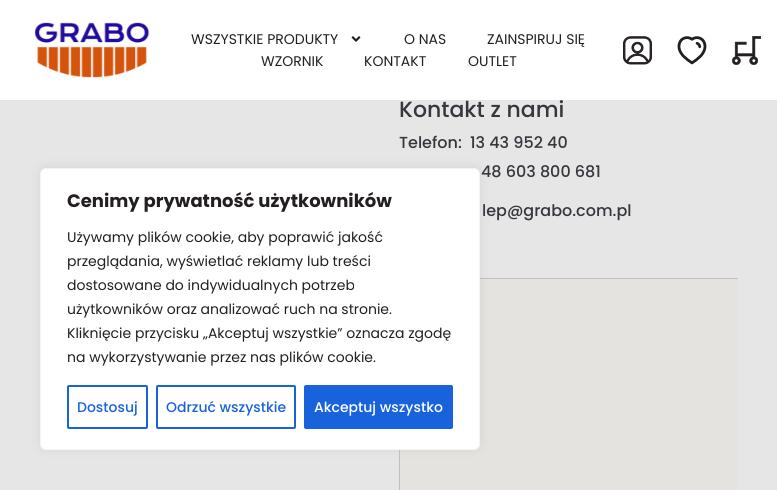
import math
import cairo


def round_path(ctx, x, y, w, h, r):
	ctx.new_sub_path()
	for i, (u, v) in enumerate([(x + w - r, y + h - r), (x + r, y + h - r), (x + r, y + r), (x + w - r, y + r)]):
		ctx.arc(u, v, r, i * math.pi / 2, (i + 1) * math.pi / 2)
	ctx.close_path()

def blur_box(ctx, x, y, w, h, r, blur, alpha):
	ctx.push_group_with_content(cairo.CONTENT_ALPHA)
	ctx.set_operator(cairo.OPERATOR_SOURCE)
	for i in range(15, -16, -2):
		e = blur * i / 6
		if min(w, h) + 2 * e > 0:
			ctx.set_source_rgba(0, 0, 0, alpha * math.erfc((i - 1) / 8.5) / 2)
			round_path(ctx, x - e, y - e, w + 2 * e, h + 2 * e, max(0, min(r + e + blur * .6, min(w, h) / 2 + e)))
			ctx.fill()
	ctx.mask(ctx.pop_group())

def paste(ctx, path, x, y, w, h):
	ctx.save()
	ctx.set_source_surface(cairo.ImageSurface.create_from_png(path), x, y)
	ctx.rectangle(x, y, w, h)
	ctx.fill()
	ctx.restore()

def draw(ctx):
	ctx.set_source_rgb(0.902, 0.902, 0.902)
	ctx.paint()
	ctx.set_source_rgb(1, 1, 1)
	ctx.rectangle(0, 0, 777, 100)
	ctx.fill()
	paste(ctx, 'media/1.png', 34, 22, 116, 56)
	ctx.select_font_face('Poppins')
	ctx.set_font_size(14)
	ctx.set_source_rgb(0.137, 0.122, 0.125)
	ctx.move_to(191, 44)
	ctx.show_text('WSZYSTKIE PRODUKTY')
	paste(ctx, 'media/2.png', 351, 36, 10, 6)
	for x, y, s in [
		(404, 44, 'O NAS'),
		(487, 44, 'ZAINSPIRUJ SIĘ'),
		(261, 66, 'WZORNIK'),
		(364, 66, 'KONTAKT'),
		(468, 66, 'OUTLET'),
	]:
		ctx.move_to(x, y)
		ctx.show_text(s)
	paste(ctx, 'media/3.png', 623, 36, 29, 29)
	paste(ctx, 'media/4.png', 677, 36, 30, 29)
	paste(ctx, 'media/5.png', 732, 36, 29, 29)
	ctx.select_font_face('Poppins Medium')
	ctx.set_font_size(22)
	ctx.set_source_rgb(0.208, 0.216, 0.239)
	ctx.move_to(399, 117)
	ctx.show_text('Kontakt z nami')
	ctx.set_font_size(16)
	for x, y, s in [
		(399, 148, 'Telefon:'),
		(470, 148, '13 43 952 40'),
		(481, 177, '48 603 800 681'),
		(482, 216, 'lep@grabo.com.pl'),
	]:
		ctx.move_to(x, y)
		ctx.show_text(s)
	paste(ctx, 'media/6.png', 399, 278, 339, 212)
	ctx.set_source_rgb(0.675, 0.671, 0.671)
	blur_box(ctx, 40, 167, 440, 282, 6, 5, 0.3)
	ctx.set_source_rgb(1, 1, 1)
	round_path(ctx, 40.5, 168.5, 439, 281, 5.5)
	ctx.fill_preserve()
	ctx.set_source_rgb(0.957, 0.957, 0.957)
	ctx.set_line_width(1)
	ctx.stroke()
	ctx.select_font_face('Poppins', cairo.FONT_SLANT_NORMAL, cairo.FONT_WEIGHT_BOLD)
	ctx.set_font_size(18)
	ctx.set_source_rgb(0.137, 0.122, 0.125)
	ctx.move_to(67, 207)
	ctx.show_text('Cenimy prywatność użytkowników')
	ctx.select_font_face('Poppins')
	ctx.set_font_size(14)
	for x, y, s in [
		(67, 242, 'Używamy plików cookie, aby poprawić jakość'),
		(67, 266, 'przeglądania, wyświetlać reklamy lub treści'),
		(67, 290, 'dostosowane do indywidualnych potrzeb'),
		(67, 314, 'użytkowników oraz analizować ruch na stronie.'),
		(67, 338, 'Kliknięcie przycisku „Akceptuj wszystkie” oznacza zgodę'),
		(67, 362, 'na wykorzystywanie przez nas plików cookie.'),
	]:
		ctx.move_to(x, y)
		ctx.show_text(s)
	round_path(ctx, 68, 386, 79, 42, 1)
	ctx.set_source_rgb(0.094, 0.388, 0.863)
	ctx.set_line_width(2)
	ctx.stroke()
	ctx.select_font_face('Poppins Medium')
	ctx.move_to(77, 412)
	ctx.show_text('Dostosuj')
	round_path(ctx, 157, 386, 138, 42, 1)
	ctx.stroke()
	ctx.move_to(166, 412)
	ctx.show_text('Odrzuć wszystkie')
	round_path(ctx, 305, 386, 147, 42, 1)
	ctx.fill_preserve()
	ctx.stroke()
	ctx.set_source_rgb(1, 1, 1)
	ctx.move_to(314, 412)
	ctx.show_text('Akceptuj wszystko')


surface = cairo.ImageSurface(cairo.FORMAT_RGB24, 777, 490)
ctx = cairo.Context(surface)
options = cairo.FontOptions()
options.set_hint_metrics(cairo.HINT_METRICS_OFF)
options.set_hint_style(cairo.HINT_STYLE_NONE)
ctx.set_font_options(options)
ctx.set_miter_limit(4)
draw(ctx)
surface.write_to_png('image.png')
